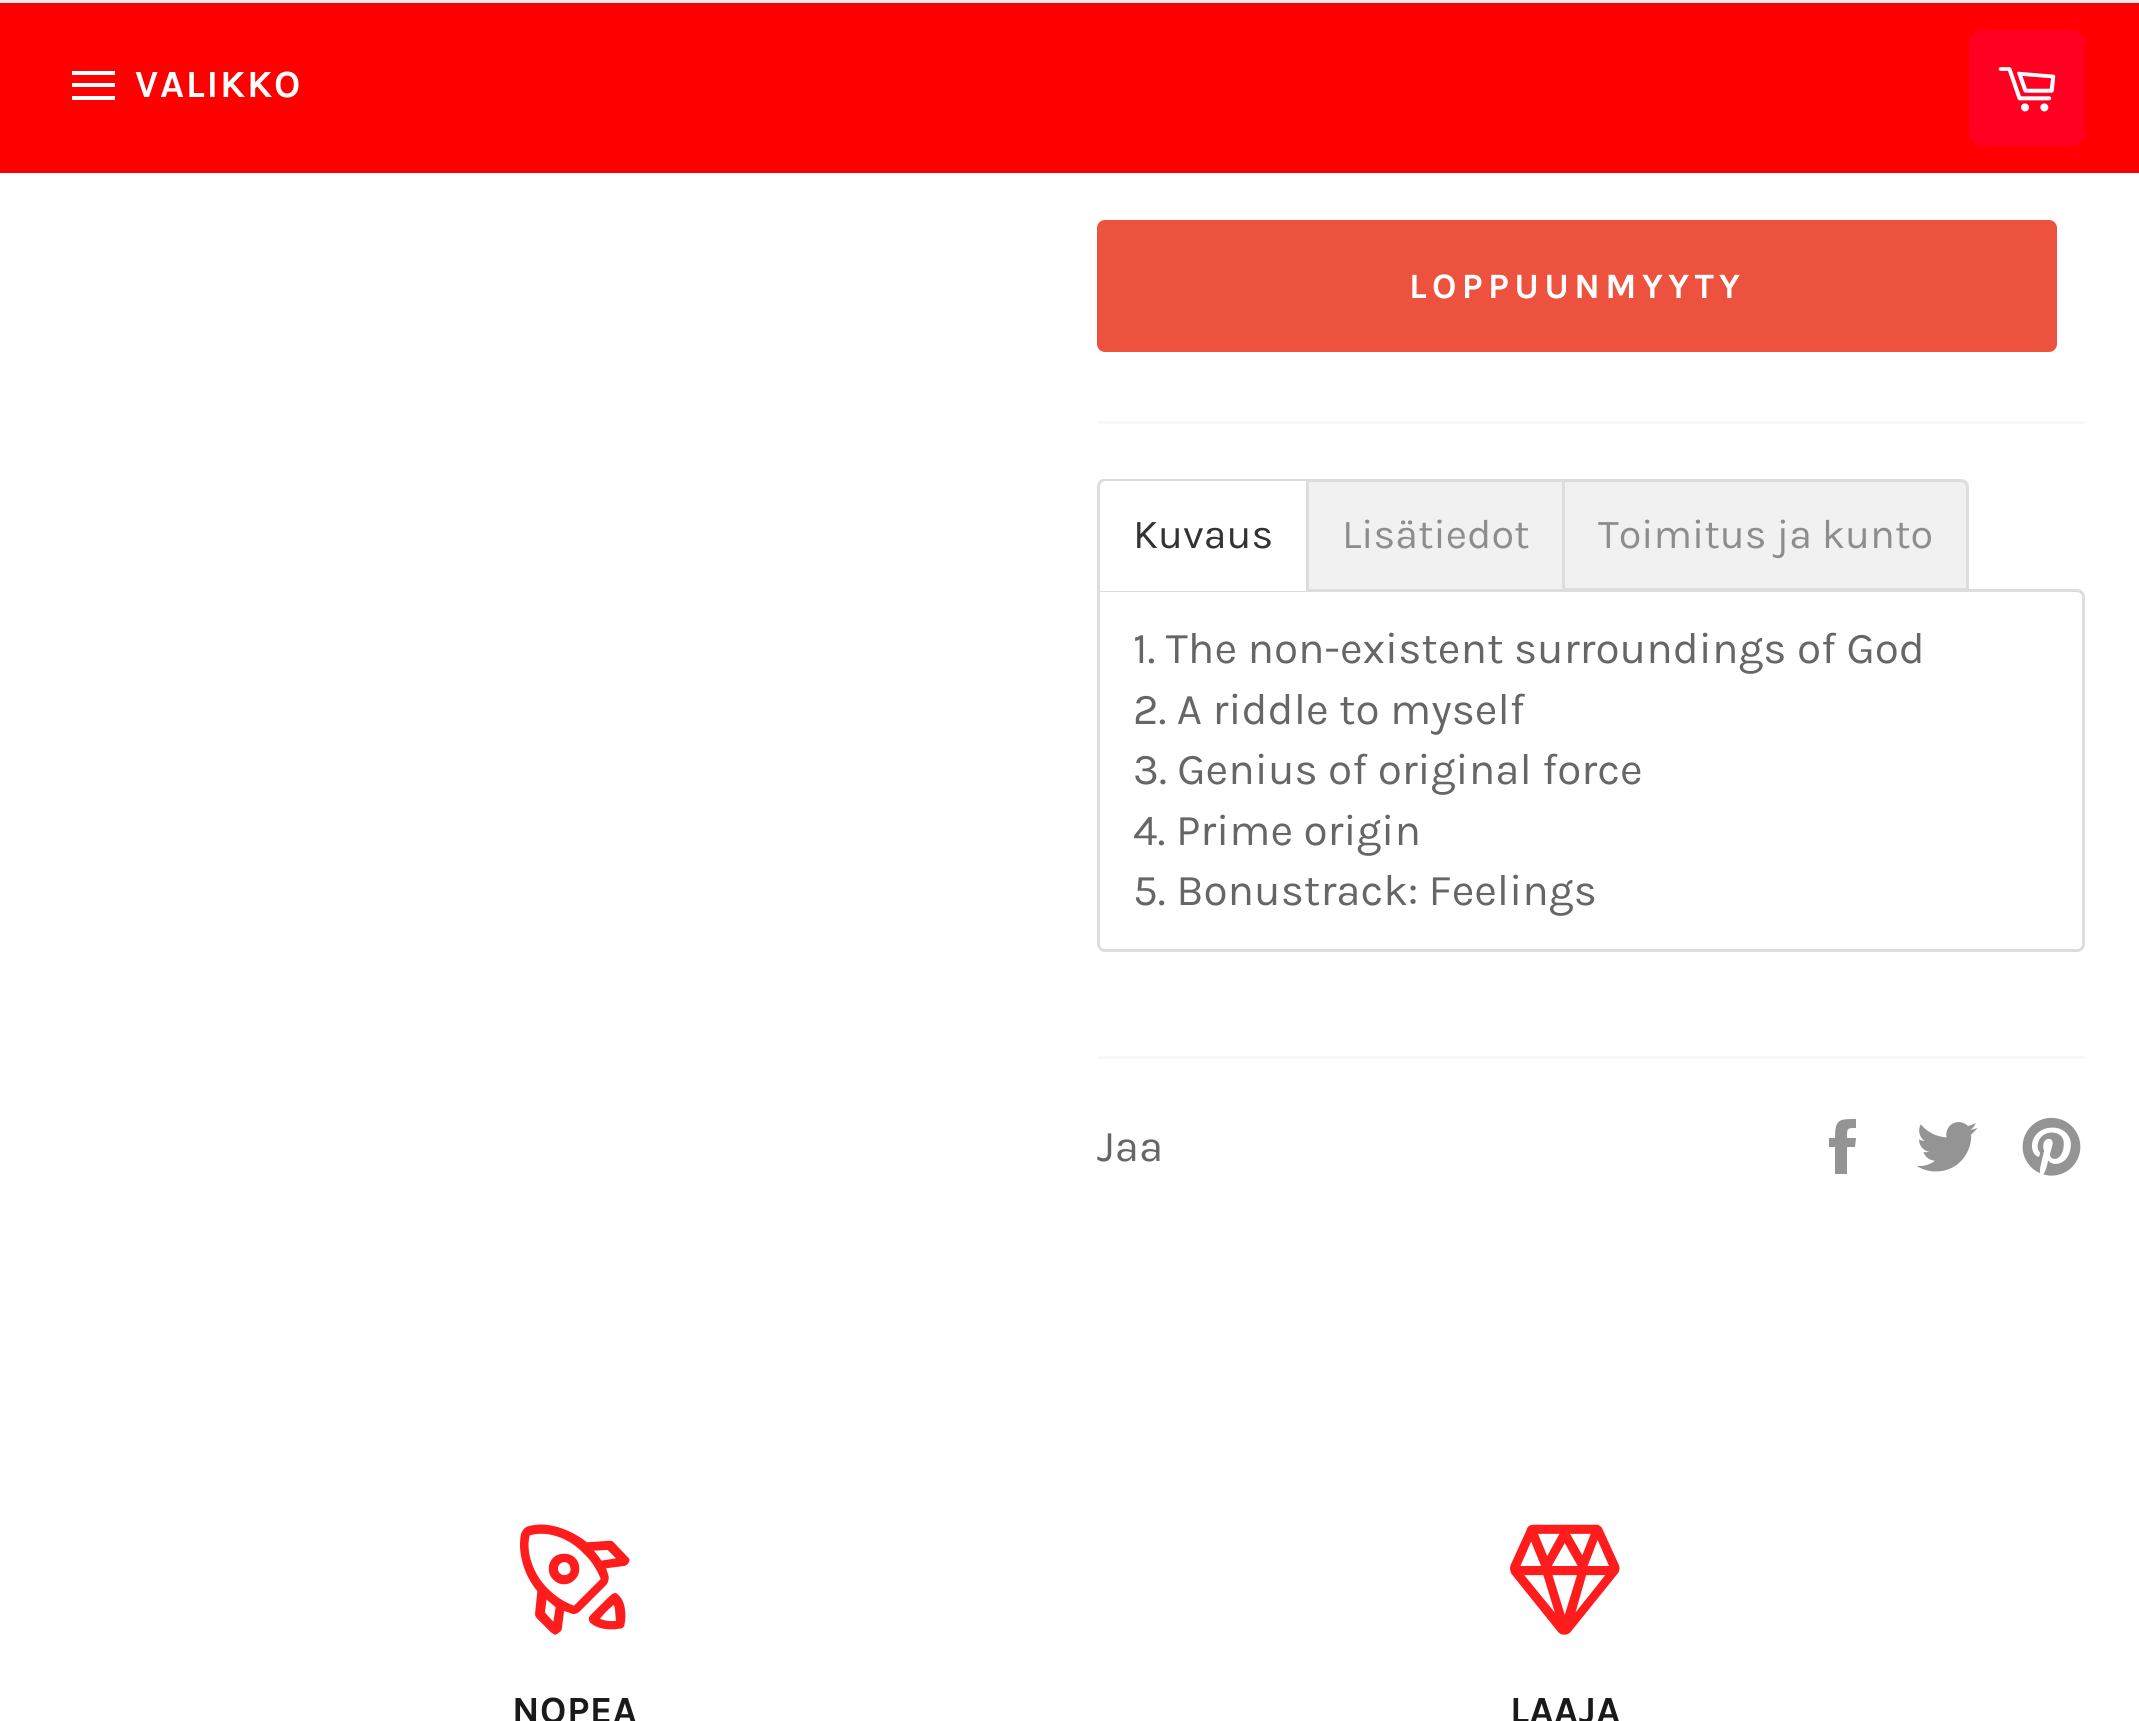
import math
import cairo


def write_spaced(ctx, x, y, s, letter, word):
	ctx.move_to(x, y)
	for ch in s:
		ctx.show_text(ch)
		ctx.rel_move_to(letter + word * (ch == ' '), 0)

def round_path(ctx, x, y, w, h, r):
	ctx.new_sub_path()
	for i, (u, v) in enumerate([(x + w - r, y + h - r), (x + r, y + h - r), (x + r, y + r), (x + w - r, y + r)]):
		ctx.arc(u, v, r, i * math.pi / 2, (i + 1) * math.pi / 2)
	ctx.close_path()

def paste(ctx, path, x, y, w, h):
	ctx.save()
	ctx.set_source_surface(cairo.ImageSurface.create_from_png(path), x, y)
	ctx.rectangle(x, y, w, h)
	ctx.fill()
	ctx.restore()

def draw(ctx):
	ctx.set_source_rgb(1, 1, 1)
	ctx.paint()
	ctx.set_source_rgb(0.918, 0.918, 0.918)
	ctx.rectangle(0, 0, 2139, 3)
	ctx.fill()
	ctx.set_source_rgb(1, 0, 0)
	ctx.rectangle(0, 3, 2139, 170)
	ctx.fill()
	ctx.set_source_rgb(1, 1, 1)
	ctx.new_path()
	ctx.move_to(72, 83)
	ctx.line_to(115, 83)
	ctx.line_to(115, 87)
	ctx.line_to(72, 87)
	ctx.close_path()
	ctx.move_to(72, 71)
	ctx.line_to(115, 71)
	ctx.line_to(115, 75)
	ctx.line_to(72, 75)
	ctx.close_path()
	ctx.move_to(72, 96)
	ctx.line_to(115, 96)
	ctx.line_to(115, 100)
	ctx.line_to(72, 100)
	ctx.close_path()
	ctx.fill()
	ctx.select_font_face('Karla', cairo.FONT_SLANT_NORMAL, cairo.FONT_WEIGHT_BOLD)
	ctx.set_font_size(38.5)
	write_spaced(ctx, 135, 97, 'VALIKKO', 1.75, 0)
	ctx.set_source_rgb(1, 0, 0.133)
	round_path(ctx, 1969, 30, 116, 116, 14)
	ctx.fill()
	paste(ctx, 'media/1.png', 1998, 67, 58, 45)
	ctx.set_source_rgb(0.925, 0.322, 0.243)
	round_path(ctx, 1098.5, 221.5, 957, 129, 6.5)
	ctx.fill_preserve()
	ctx.set_line_width(3)
	ctx.stroke()
	ctx.set_font_size(35.75)
	ctx.set_source_rgb(1, 1, 1)
	write_spaced(ctx, 1409, 298, 'LOPPUUNMYYTY', 5.4, 0)
	ctx.set_source_rgb(0.969, 0.969, 0.969)
	ctx.rectangle(1097, 421, 988, 3)
	ctx.fill()
	ctx.new_path()
	ctx.move_to(1098.5, 590.5)
	ctx.line_to(2077, 590.5)
	ctx.curve_to(2080.5, 590.5, 2083.5, 593.5, 2083.5, 597)
	ctx.line_to(2083.5, 944)
	ctx.curve_to(2083.5, 947.5, 2080.5, 950.5, 2077, 950.5)
	ctx.line_to(1105, 950.5)
	ctx.curve_to(1101.5, 950.5, 1098.5, 947.5, 1098.5, 944)
	ctx.close_path()
	ctx.set_source_rgb(0.867, 0.867, 0.867)
	ctx.stroke()
	ctx.set_source_rgb(1, 1, 1)
	ctx.new_path()
	ctx.move_to(1106, 481)
	ctx.line_to(1306, 481)
	ctx.line_to(1306, 591)
	ctx.line_to(1100, 591)
	ctx.line_to(1100, 487)
	ctx.curve_to(1100, 483.5, 1102.5, 481, 1106, 481)
	ctx.close_path()
	ctx.fill()
	ctx.save()
	ctx.rectangle(1097, 479, 988, 112)
	ctx.clip()
	ctx.set_source_rgb(0.867, 0.867, 0.867)
	ctx.set_fill_rule(cairo.FILL_RULE_EVEN_ODD)
	ctx.new_path()
	ctx.move_to(1106, 478)
	ctx.line_to(1309, 478)
	ctx.line_to(1309, 591)
	ctx.line_to(1097, 591)
	ctx.line_to(1097, 487)
	ctx.curve_to(1097, 482, 1101, 478, 1106, 478)
	ctx.close_path()
	ctx.move_to(1106, 481)
	ctx.line_to(1306, 481)
	ctx.line_to(1306, 591)
	ctx.line_to(1100, 591)
	ctx.line_to(1100, 487)
	ctx.curve_to(1100, 484, 1102, 481, 1106, 481)
	ctx.close_path()
	ctx.fill()
	ctx.restore()
	ctx.select_font_face('Karla')
	ctx.set_font_size(41.25)
	ctx.set_source_rgb(0.2, 0.2, 0.2)
	ctx.move_to(1133, 548)
	ctx.show_text('Kuvaus')
	ctx.set_source_rgb(0.945, 0.945, 0.945)
	ctx.rectangle(1309, 482, 253, 107)
	ctx.fill()
	ctx.set_source_rgb(0.867, 0.867, 0.867)
	ctx.rectangle(1309, 479, 253, 3)
	ctx.fill()
	ctx.set_source_rgb(0.553, 0.553, 0.553)
	ctx.move_to(1342, 548)
	ctx.show_text('Lisätiedot')
	ctx.set_source_rgb(0.945, 0.945, 0.945)
	ctx.new_path()
	ctx.move_to(1563.5, 480.5)
	ctx.line_to(1961, 480.5)
	ctx.curve_to(1964.5, 480.5, 1967.5, 483.5, 1967.5, 487)
	ctx.line_to(1967.5, 589.5)
	ctx.line_to(1563.5, 589.5)
	ctx.close_path()
	ctx.fill_preserve()
	ctx.set_source_rgb(0.867, 0.867, 0.867)
	ctx.stroke()
	ctx.set_source_rgb(0.553, 0.553, 0.553)
	ctx.move_to(1598, 548)
	ctx.show_text('Toimitus ja kunto')
	ctx.set_font_size(44)
	ctx.set_source_rgb(0.4, 0.4, 0.4)
	for x, y, s in [
		(1133, 663, '1. The non-existent surroundings of God'),
		(1133, 724, '2. A riddle to myself'),
		(1133, 784, '3. Genius of original force'),
		(1133, 845, '4. Prime origin'),
		(1133, 905, '5. Bonustrack: Feelings'),
	]:
		ctx.move_to(x, y)
		ctx.show_text(s)
	ctx.set_source_rgb(0.969, 0.969, 0.969)
	ctx.rectangle(1097, 1056, 988, 3)
	ctx.fill()
	ctx.set_source_rgb(0.4, 0.4, 0.4)
	ctx.move_to(1097, 1161)
	ctx.show_text('Jaa')
	ctx.set_source_rgb(0.58, 0.58, 0.58)
	ctx.new_path()
	ctx.move_to(1847, 1138)
	ctx.curve_to(1847, 1128, 1847, 1128, 1856, 1128)
	ctx.line_to(1856, 1119)
	ctx.curve_to(1839, 1119, 1835, 1119, 1835, 1138)
	ctx.line_to(1829, 1138)
	ctx.line_to(1829, 1147)
	ctx.line_to(1835, 1147)
	ctx.line_to(1835, 1174)
	ctx.line_to(1847, 1174)
	ctx.line_to(1847, 1147)
	ctx.line_to(1855, 1147)
	ctx.line_to(1856, 1138)
	ctx.close_path()
	ctx.fill()
	paste(ctx, 'media/2.png', 1917, 1122, 61, 50)
	paste(ctx, 'media/3.png', 2022, 1117, 59, 59)
	paste(ctx, 'media/4.png', 520, 1524, 110, 111)
	ctx.select_font_face('Karla', cairo.FONT_SLANT_NORMAL, cairo.FONT_WEIGHT_BOLD)
	ctx.set_font_size(38.5)
	ctx.set_source_rgb(0.102, 0.102, 0.102)
	write_spaced(ctx, 512, 1723, 'NOPEA', 0.5, 0)
	paste(ctx, 'media/5.png', 1510, 1524, 110, 111)
	write_spaced(ctx, 1510, 1723, 'LAAJA', 0.5, 0)


surface = cairo.ImageSurface(cairo.FORMAT_RGB24, 2139, 1721)
ctx = cairo.Context(surface)
options = cairo.FontOptions()
options.set_hint_metrics(cairo.HINT_METRICS_OFF)
options.set_hint_style(cairo.HINT_STYLE_NONE)
ctx.set_font_options(options)
ctx.set_miter_limit(4)
draw(ctx)
surface.write_to_png('image.png')
